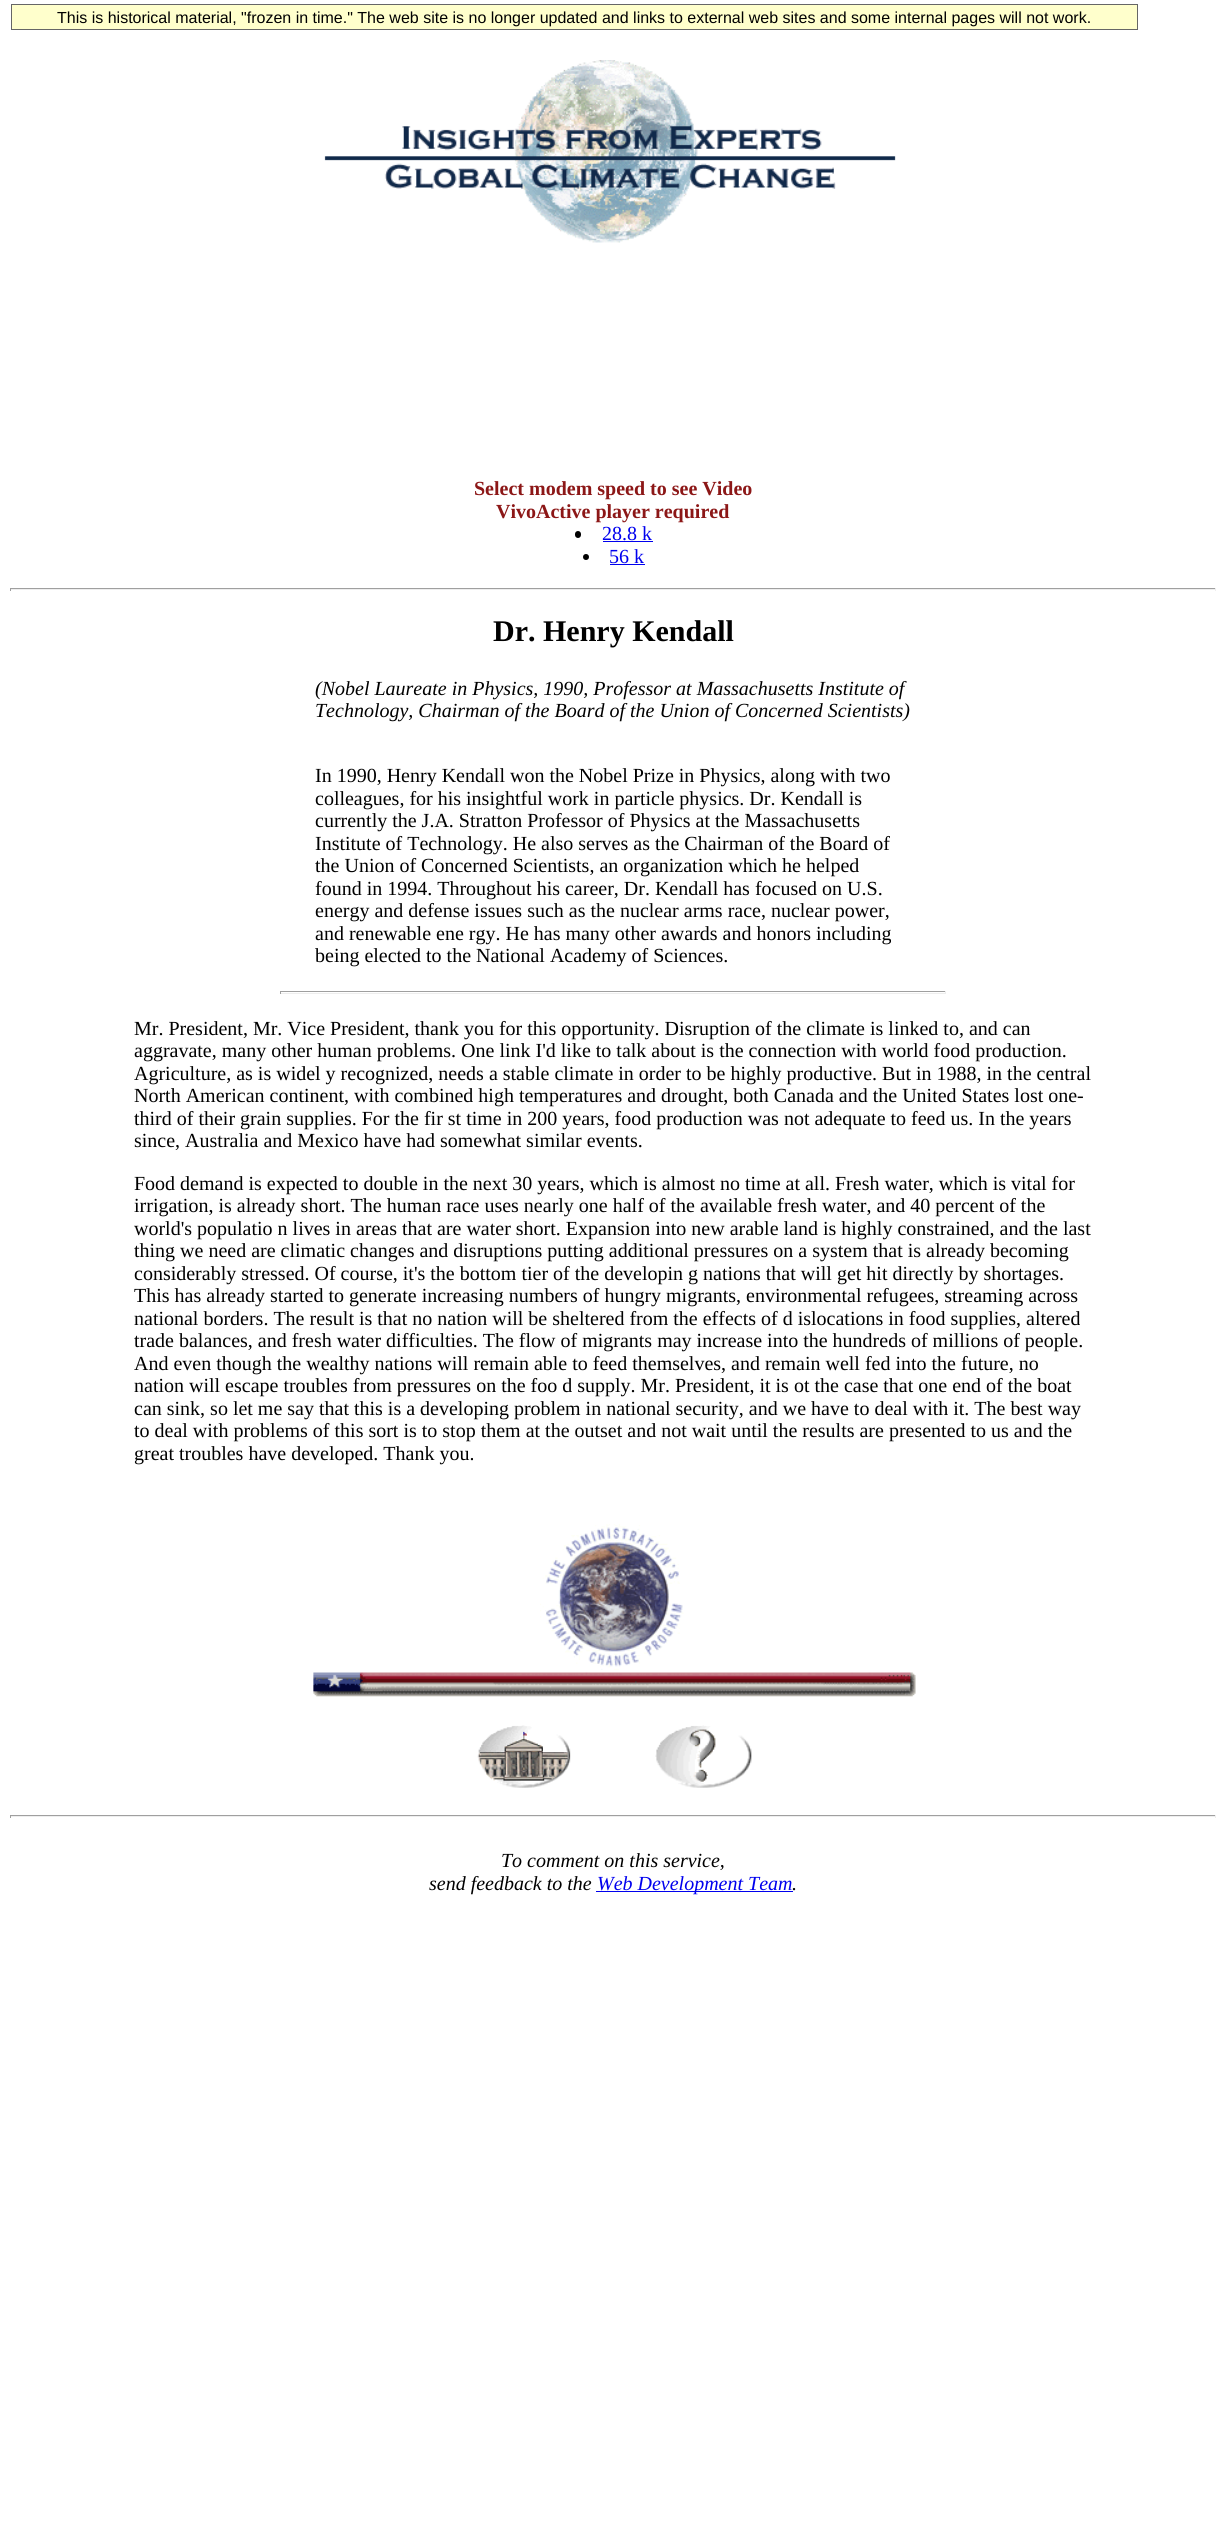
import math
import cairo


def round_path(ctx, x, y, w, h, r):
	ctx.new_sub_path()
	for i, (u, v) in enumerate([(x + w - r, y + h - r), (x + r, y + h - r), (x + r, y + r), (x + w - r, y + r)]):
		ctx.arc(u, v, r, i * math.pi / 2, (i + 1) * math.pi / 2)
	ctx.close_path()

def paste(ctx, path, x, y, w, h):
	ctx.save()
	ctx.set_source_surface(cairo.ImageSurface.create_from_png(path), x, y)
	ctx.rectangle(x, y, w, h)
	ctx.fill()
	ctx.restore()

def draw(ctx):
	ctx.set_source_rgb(1, 1, 1)
	ctx.paint()
	ctx.set_source_rgb(1, 1, 0.8)
	ctx.rectangle(11.5, 4.5, 1126, 25)
	ctx.fill_preserve()
	ctx.set_source_rgb(0.4, 0.4, 0.4)
	ctx.set_line_width(1)
	ctx.stroke()
	ctx.select_font_face('Liberation Sans')
	ctx.set_font_size(16)
	ctx.set_source_rgb(0, 0, 0)
	ctx.move_to(57, 23)
	ctx.show_text('This is historical material, "frozen in time." The web site is no longer updated and links to external web sites and some internal pages will not work.')
	paste(ctx, 'media/1.png', 324, 60, 572, 183)
	ctx.select_font_face('Liberation Serif', cairo.FONT_SLANT_NORMAL, cairo.FONT_WEIGHT_BOLD)
	ctx.set_font_size(20)
	ctx.set_source_rgb(0.549, 0.09, 0.09)
	ctx.move_to(474, 495)
	ctx.show_text('Select modem speed to see Video')
	ctx.move_to(496, 518)
	ctx.show_text('VivoActive player required')
	ctx.set_source_rgb(0, 0, 0)
	round_path(ctx, 575, 531, 6, 7, 3)
	ctx.fill()
	ctx.select_font_face('Liberation Serif')
	ctx.set_source_rgb(0, 0, 0.933)
	ctx.move_to(602, 540)
	ctx.show_text('28.8 k')
	ctx.rectangle(603, 541, 50, 1)
	ctx.fill()
	ctx.set_source_rgb(0, 0, 0)
	ctx.arc(586, 557, 3, 0, 2 * math.pi)
	ctx.fill()
	ctx.set_source_rgb(0, 0, 0.933)
	ctx.move_to(609, 563)
	ctx.show_text('56 k')
	ctx.rectangle(610, 564, 35, 1)
	ctx.fill()
	ctx.set_source_rgb(0.624, 0.624, 0.624)
	ctx.rectangle(10, 588, 1206, 1)
	ctx.fill()
	ctx.set_source_rgb(0.933, 0.933, 0.933)
	ctx.rectangle(1215, 588, 1, 3)
	ctx.rectangle(10, 589, 1206, 1)
	ctx.fill()
	ctx.set_source_rgb(0.624, 0.624, 0.624)
	ctx.rectangle(10, 588, 1, 3)
	ctx.fill()
	ctx.select_font_face('Liberation Serif', cairo.FONT_SLANT_NORMAL, cairo.FONT_WEIGHT_BOLD)
	ctx.set_font_size(30)
	ctx.set_source_rgb(0, 0, 0)
	ctx.move_to(493, 641)
	ctx.show_text('Dr. Henry Kendall')
	ctx.select_font_face('Liberation Serif', cairo.FONT_SLANT_ITALIC)
	ctx.set_font_size(20)
	ctx.move_to(315, 695)
	ctx.show_text('(Nobel Laureate in Physics, 1990, Professor at Massachusetts Institute of')
	ctx.move_to(315, 717)
	ctx.show_text('Technology, Chairman of the Board of the Union of Concerned Scientists)')
	ctx.select_font_face('Liberation Serif')
	for x, y, s in [
		(315, 782, 'In 1990, Henry Kendall won the Nobel Prize in Physics, along with two'),
		(315, 805, 'colleagues, for his insightful work in particle physics. Dr. Kendall is'),
		(315, 827, 'currently the J.A. Stratton Professor of Physics at the Massachusetts'),
		(315, 850, 'Institute of Technology. He also serves as the Chairman of the Board of'),
		(315, 872, 'the Union of Concerned Scientists, an organization which he helped'),
		(315, 895, 'found in 1994. Throughout his career, Dr. Kendall has focused on U.S.'),
		(315, 917, 'energy and defense issues such as the nuclear arms race, nuclear power,'),
		(315, 940, 'and renewable ene rgy. He has many other awards and honors including'),
		(315, 962, 'being elected to the National Academy of Sciences.'),
	]:
		ctx.move_to(x, y)
		ctx.show_text(s)
	ctx.set_source_rgb(0.624, 0.624, 0.624)
	ctx.rectangle(280, 991, 666, 1)
	ctx.fill()
	ctx.set_source_rgb(0.933, 0.933, 0.933)
	ctx.rectangle(945, 991, 1, 3)
	ctx.rectangle(280, 993, 666, 1)
	ctx.fill()
	ctx.set_source_rgb(0.624, 0.624, 0.624)
	ctx.rectangle(280, 991, 1, 3)
	ctx.fill()
	ctx.set_source_rgb(0, 0, 0)
	for x, y, s in [
		(134, 1035, 'Mr. President, Mr. Vice President, thank you for this opportunity. Disruption of the climate is linked to, and can'),
		(134, 1057, 'aggravate, many other human problems. One link I\'d like to talk about is the connection with world food production.'),
		(134, 1080, 'Agriculture, as is widel y recognized, needs a stable climate in order to be highly productive. But in 1988, in the central'),
		(134, 1102, 'North American continent, with combined high temperatures and drought, both Canada and the United States lost one-'),
		(134, 1125, 'third of their grain supplies. For the fir st time in 200 years, food production was not adequate to feed us. In the years'),
		(134, 1147, 'since, Australia and Mexico have had somewhat similar events.'),
		(134, 1190, 'Food demand is expected to double in the next 30 years, which is almost no time at all. Fresh water, which is vital for'),
		(134, 1212, 'irrigation, is already short. The human race uses nearly one half of the available fresh water, and 40 percent of the'),
		(134, 1235, 'world\'s populatio n lives in areas that are water short. Expansion into new arable land is highly constrained, and the last'),
		(134, 1257, 'thing we need are climatic changes and disruptions putting additional pressures on a system that is already becoming'),
		(134, 1280, 'considerably stressed. Of course, it\'s the bottom tier of the developin g nations that will get hit directly by shortages.'),
		(134, 1302, 'This has already started to generate increasing numbers of hungry migrants, environmental refugees, streaming across'),
		(134, 1325, 'national borders. The result is that no nation will be sheltered from the effects of d islocations in food supplies, altered'),
		(134, 1347, 'trade balances, and fresh water difficulties. The flow of migrants may increase into the hundreds of millions of people.'),
		(134, 1370, 'And even though the wealthy nations will remain able to feed themselves, and remain well fed into the future, no'),
		(134, 1392, 'nation will escape troubles from pressures on the foo d supply. Mr. President, it is ot the case that one end of the boat'),
		(134, 1415, 'can sink, so let me say that this is a developing problem in national security, and we have to deal with it. The best way'),
		(134, 1437, 'to deal with problems of this sort is to stop them at the outset and not wait until the results are presented to us and the'),
		(134, 1460, 'great troubles have developed. Thank you.'),
	]:
		ctx.move_to(x, y)
		ctx.show_text(s)
	paste(ctx, 'media/2.png', 540, 1524, 144, 146)
	paste(ctx, 'media/3.png', 313, 1672, 603, 25)
	paste(ctx, 'media/4.png', 477, 1725, 94, 63)
	paste(ctx, 'media/5.png', 655, 1725, 97, 63)
	ctx.set_source_rgb(0.624, 0.624, 0.624)
	ctx.rectangle(10, 1815, 1206, 1)
	ctx.fill()
	ctx.set_source_rgb(0.933, 0.933, 0.933)
	ctx.rectangle(1215, 1815, 1, 3)
	ctx.rectangle(10, 1816, 1206, 1)
	ctx.fill()
	ctx.set_source_rgb(0.624, 0.624, 0.624)
	ctx.rectangle(10, 1815, 1, 3)
	ctx.fill()
	ctx.select_font_face('Liberation Serif', cairo.FONT_SLANT_ITALIC)
	ctx.set_source_rgb(0, 0, 0)
	ctx.move_to(501, 1867)
	ctx.show_text('To comment on this service,')
	ctx.move_to(429, 1890)
	ctx.show_text('send feedback to the')
	ctx.set_source_rgb(0, 0, 0.933)
	ctx.rectangle(596, 1891, 197, 1)
	ctx.fill()
	ctx.move_to(597, 1890)
	ctx.show_text('Web Development Team')
	ctx.set_source_rgb(0, 0, 0)
	ctx.move_to(792, 1890)
	ctx.show_text('.')


surface = cairo.ImageSurface(cairo.FORMAT_RGB24, 1226, 2545)
ctx = cairo.Context(surface)
options = cairo.FontOptions()
options.set_hint_metrics(cairo.HINT_METRICS_OFF)
options.set_hint_style(cairo.HINT_STYLE_NONE)
ctx.set_font_options(options)
ctx.set_miter_limit(4)
draw(ctx)
surface.write_to_png('image.png')
